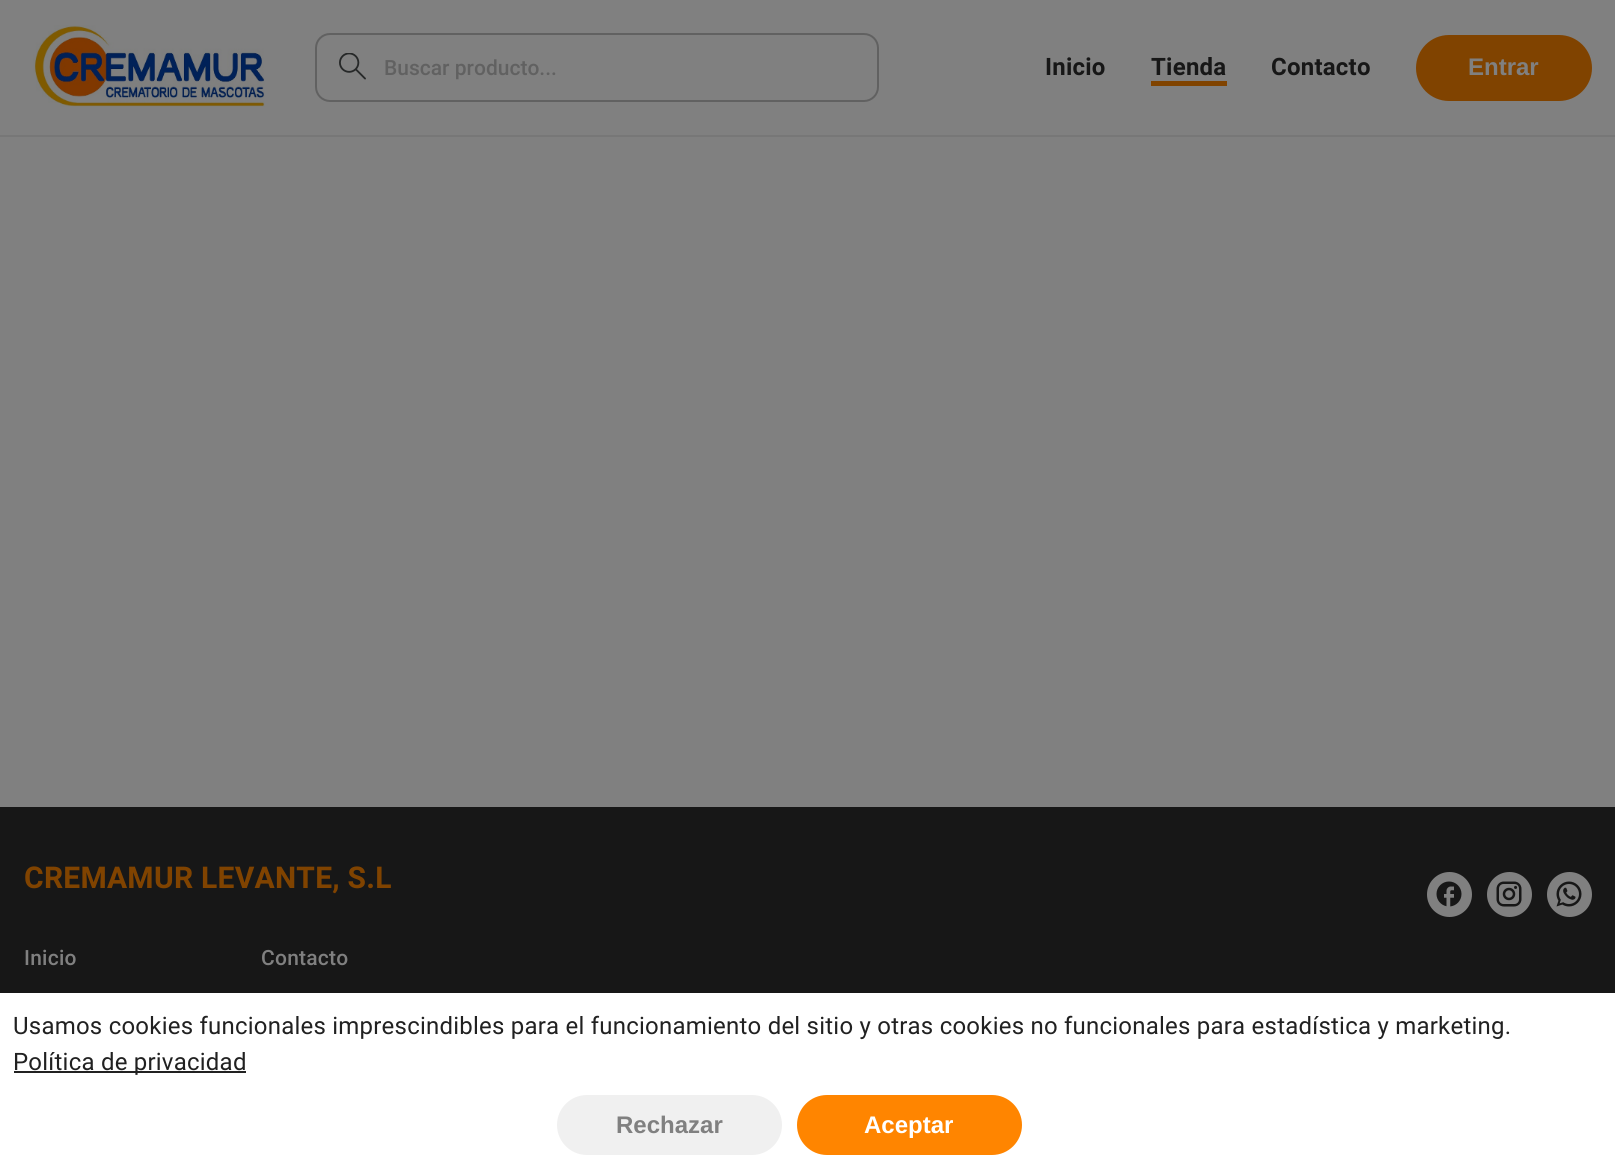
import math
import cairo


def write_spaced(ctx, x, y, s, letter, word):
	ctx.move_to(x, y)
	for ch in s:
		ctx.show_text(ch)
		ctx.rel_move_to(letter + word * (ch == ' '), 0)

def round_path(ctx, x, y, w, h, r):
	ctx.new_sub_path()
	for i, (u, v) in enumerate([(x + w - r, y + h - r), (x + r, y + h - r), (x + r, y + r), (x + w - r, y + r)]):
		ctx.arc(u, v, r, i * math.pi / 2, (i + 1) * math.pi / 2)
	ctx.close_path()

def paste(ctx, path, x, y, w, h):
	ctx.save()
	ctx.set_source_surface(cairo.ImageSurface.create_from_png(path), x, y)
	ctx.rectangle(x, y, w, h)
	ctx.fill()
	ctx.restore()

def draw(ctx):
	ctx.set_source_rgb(0.502, 0.502, 0.502)
	ctx.paint()
	ctx.set_source_rgb(0.467, 0.467, 0.467)
	ctx.rectangle(0, 135, 1615, 2)
	ctx.fill()
	paste(ctx, 'media/1.png', 33, 25, 232, 82)
	round_path(ctx, 316, 34, 562, 67, 14)
	ctx.set_source_rgb(0.38, 0.38, 0.38)
	ctx.stroke()
	paste(ctx, 'media/2.png', 339, 53, 27, 27)
	ctx.select_font_face('Roboto Medium')
	ctx.set_font_size(21)
	ctx.move_to(384, 75)
	ctx.show_text('Buscar producto...')
	ctx.select_font_face('Roboto', cairo.FONT_SLANT_NORMAL, cairo.FONT_WEIGHT_BOLD)
	ctx.set_font_size(24)
	ctx.set_source_rgb(0.09, 0.09, 0.09)
	write_spaced(ctx, 1045, 75, 'Inicio', 0.23, 0)
	write_spaced(ctx, 1151, 75, 'Tienda', 0.23, 0)
	ctx.set_source_rgb(0.502, 0.263, 0)
	ctx.rectangle(1151, 81, 76, 5)
	ctx.fill()
	ctx.set_source_rgb(0.09, 0.09, 0.09)
	write_spaced(ctx, 1271, 75, 'Contacto', 0.23, 0)
	ctx.set_source_rgb(0.502, 0.263, 0)
	round_path(ctx, 1417.5, 36.5, 173, 63, 31.5)
	ctx.fill_preserve()
	ctx.set_line_width(3)
	ctx.stroke()
	ctx.select_font_face('Liberation Sans', cairo.FONT_SLANT_NORMAL, cairo.FONT_WEIGHT_BOLD)
	ctx.set_source_rgb(0.502, 0.502, 0.502)
	ctx.move_to(1468, 75)
	ctx.show_text('Entrar')
	ctx.set_source_rgb(0.09, 0.09, 0.09)
	ctx.rectangle(0, 807, 1615, 186)
	ctx.fill()
	ctx.select_font_face('Roboto', cairo.FONT_SLANT_NORMAL, cairo.FONT_WEIGHT_BOLD)
	ctx.set_font_size(30)
	ctx.set_source_rgb(0.502, 0.263, 0)
	write_spaced(ctx, 24, 888, 'CREMAMUR LEVANTE, S.L', 0.25, 0)
	ctx.select_font_face('Roboto Medium')
	ctx.set_font_size(21)
	ctx.set_source_rgb(0.502, 0.502, 0.502)
	write_spaced(ctx, 24, 965, 'Inicio', 0.23, 0)
	write_spaced(ctx, 261, 965, 'Contacto', 0.23, 0)
	ctx.new_path()
	ctx.arc(1449.5, 894.5, 22.5, 0, 2 * math.pi)
	ctx.fill()
	paste(ctx, 'media/3.png', 1436, 881, 26, 26)
	ctx.arc(1509.5, 894.5, 22.5, 0, 2 * math.pi)
	ctx.fill()
	paste(ctx, 'media/4.png', 1496, 881, 26, 26)
	ctx.arc(1569.5, 894.5, 22.5, 0, 2 * math.pi)
	ctx.fill()
	paste(ctx, 'media/5.png', 1556, 881, 26, 26)
	ctx.set_source_rgb(1, 1, 1)
	ctx.rectangle(0, 993, 1615, 176)
	ctx.fill()
	ctx.select_font_face('Roboto')
	ctx.set_font_size(24)
	ctx.set_source_rgb(0.129, 0.129, 0.129)
	write_spaced(ctx, 13, 1034, 'Usamos cookies funcionales imprescindibles para el funcionamiento del sitio y otras cookies no funcionales para estadística y marketing.', 0.23, 0)
	ctx.rectangle(14, 1071, 232, 2)
	ctx.fill()
	write_spaced(ctx, 13, 1070, 'Política de privacidad', 0.23, 0)
	ctx.set_source_rgb(0.941, 0.941, 0.941)
	round_path(ctx, 558.5, 1096.5, 222, 57, 28.5)
	ctx.fill_preserve()
	ctx.stroke()
	ctx.select_font_face('Liberation Sans', cairo.FONT_SLANT_NORMAL, cairo.FONT_WEIGHT_BOLD)
	ctx.set_source_rgb(0.502, 0.502, 0.502)
	ctx.move_to(616, 1133)
	ctx.show_text('Rechazar')
	ctx.set_source_rgb(1, 0.522, 0)
	round_path(ctx, 798.5, 1096.5, 222, 57, 28.5)
	ctx.fill_preserve()
	ctx.stroke()
	ctx.set_source_rgb(1, 1, 1)
	ctx.move_to(864, 1133)
	ctx.show_text('Aceptar')


surface = cairo.ImageSurface(cairo.FORMAT_RGB24, 1615, 1169)
ctx = cairo.Context(surface)
options = cairo.FontOptions()
options.set_hint_metrics(cairo.HINT_METRICS_OFF)
options.set_hint_style(cairo.HINT_STYLE_NONE)
ctx.set_font_options(options)
ctx.set_miter_limit(4)
draw(ctx)
surface.write_to_png('image.png')
